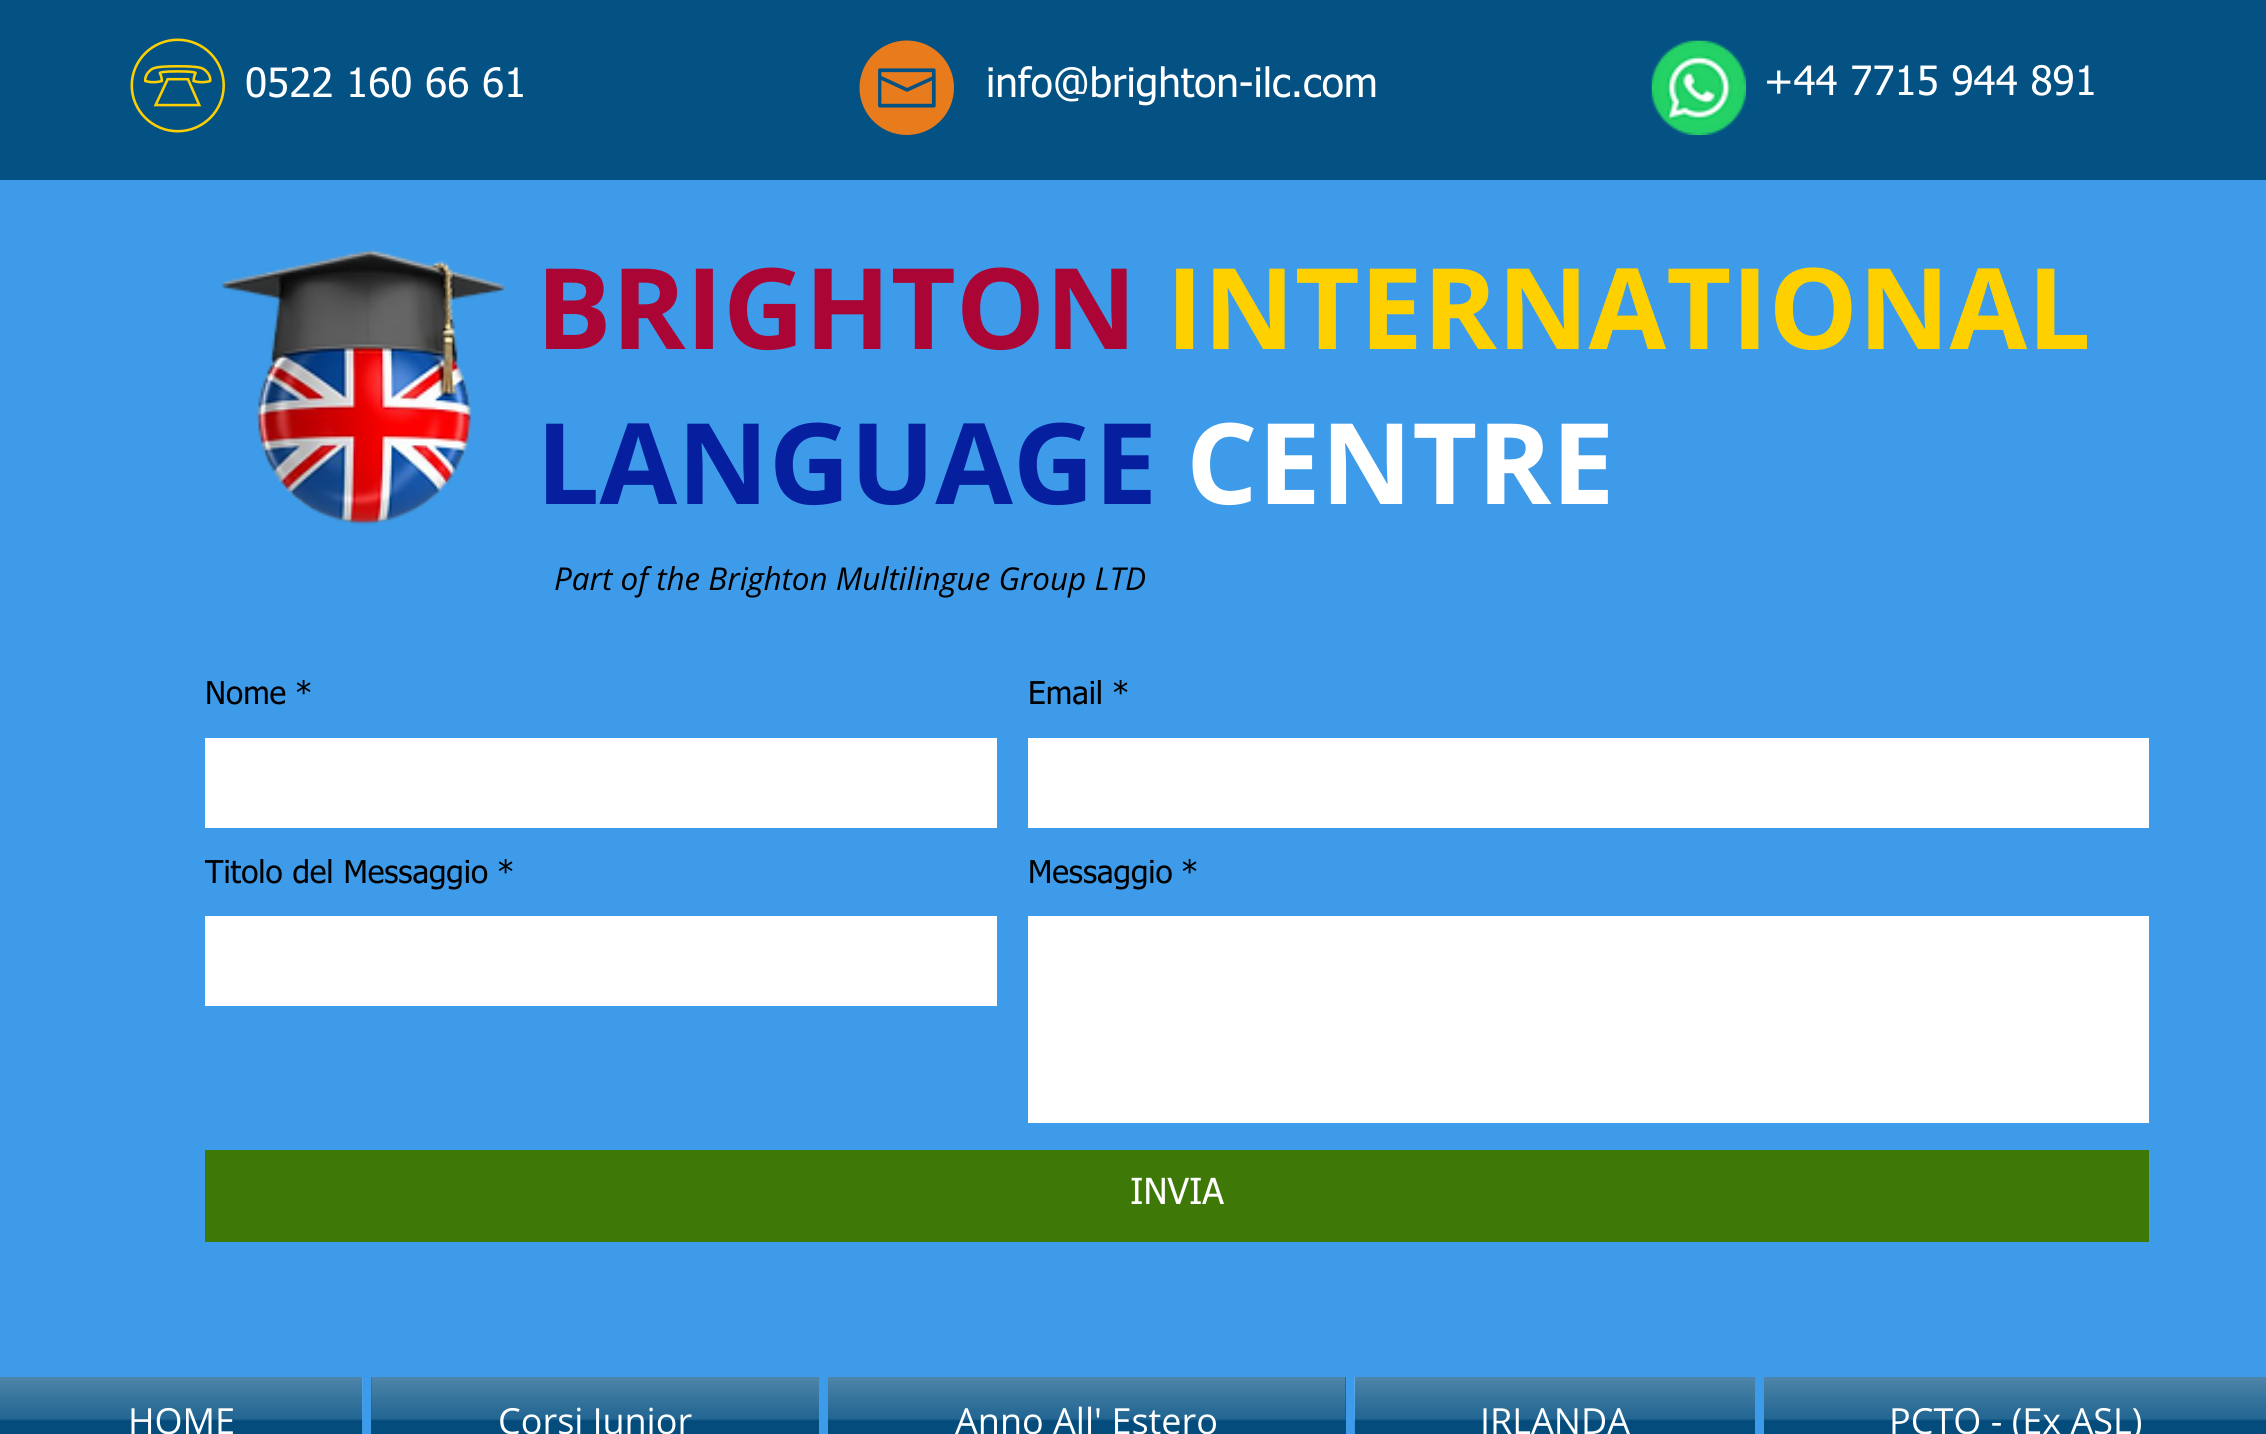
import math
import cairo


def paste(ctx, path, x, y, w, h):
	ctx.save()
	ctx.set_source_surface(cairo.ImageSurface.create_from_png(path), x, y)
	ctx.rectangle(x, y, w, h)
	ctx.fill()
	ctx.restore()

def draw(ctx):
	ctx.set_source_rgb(0.239, 0.608, 0.914)
	ctx.paint()
	ctx.set_source_rgb(0.016, 0.318, 0.518)
	ctx.rectangle(0, 0, 2266, 180)
	ctx.fill()
	paste(ctx, 'media/1.png', 130, 38, 95, 95)
	ctx.select_font_face('tahoma')
	ctx.set_font_size(40.5)
	ctx.set_source_rgb(1, 1, 1)
	ctx.move_to(245, 97)
	ctx.show_text('0522 160 66 61')
	paste(ctx, 'media/2.png', 859, 40, 95, 95)
	ctx.move_to(986, 97)
	ctx.show_text('info@brighton-ilc.com')
	paste(ctx, 'media/3.png', 1651, 40, 95, 95)
	ctx.move_to(1764, 95)
	ctx.show_text('+44 7715 944 891')
	paste(ctx, 'media/4.png', 220, 249, 286, 276)
	ctx.select_font_face('Open Sans', cairo.FONT_SLANT_NORMAL, cairo.FONT_WEIGHT_BOLD)
	ctx.set_font_size(112.5)
	ctx.set_source_rgb(0.671, 0.02, 0.208)
	ctx.move_to(536, 349)
	ctx.show_text('BRIGHTON')
	ctx.set_source_rgb(1, 0.816, 0)
	ctx.move_to(1166, 349)
	ctx.show_text('INTERNATIONAL')
	ctx.set_source_rgb(0.024, 0.122, 0.62)
	ctx.move_to(536, 504)
	ctx.show_text('LANGUAGE')
	ctx.set_source_rgb(1, 1, 1)
	ctx.move_to(1186, 504)
	ctx.show_text('CENTRE')
	ctx.select_font_face('Open Sans', cairo.FONT_SLANT_ITALIC)
	ctx.set_font_size(31.5)
	ctx.set_source_rgb(0, 0, 0)
	ctx.move_to(554, 590)
	ctx.show_text('Part of the Brighton Multilingue Group LTD')
	ctx.select_font_face('tahoma')
	for x, y, s in [
		(205, 704, 'Nome'),
		(295, 704, '*'),
		(1028, 704, 'Email'),
		(1112, 704, '*'),
	]:
		ctx.move_to(x, y)
		ctx.show_text(s)
	ctx.set_source_rgb(1, 1, 1)
	ctx.rectangle(205, 738, 792, 90)
	ctx.fill()
	ctx.rectangle(1028, 738, 1121, 90)
	ctx.fill()
	ctx.set_source_rgb(0, 0, 0)
	for x, y, s in [
		(205, 883, 'Titolo del Messaggio'),
		(497, 883, '*'),
		(1028, 883, 'Messaggio'),
		(1181, 883, '*'),
	]:
		ctx.move_to(x, y)
		ctx.show_text(s)
	ctx.set_source_rgb(1, 1, 1)
	ctx.rectangle(205, 916, 792, 90)
	ctx.rectangle(1028, 916, 1121, 207)
	ctx.fill()
	ctx.set_source_rgb(0.243, 0.475, 0.035)
	ctx.rectangle(205, 1150, 1944, 92)
	ctx.fill()
	ctx.set_font_size(36)
	ctx.set_source_rgb(1, 1, 1)
	ctx.move_to(1130, 1204)
	ctx.show_text('INVIA')
	ctx.set_source_rgb(0.016, 0.318, 0.518)
	ctx.rectangle(0, 1377, 362, 57)
	ctx.fill()
	paste(ctx, 'media/5.png', 0, 1377, 363, 57)
	ctx.select_font_face('Open Sans')
	ctx.set_source_rgb(1, 1, 1)
	ctx.move_to(128, 1434)
	ctx.show_text('HOME')
	ctx.set_source_rgb(0.016, 0.318, 0.518)
	ctx.rectangle(371, 1377, 448, 57)
	ctx.fill()
	paste(ctx, 'media/6.png', 371, 1377, 448, 57)
	ctx.set_source_rgb(1, 1, 1)
	ctx.move_to(498, 1434)
	ctx.show_text('Corsi Junior')
	ctx.set_source_rgb(0.016, 0.318, 0.518)
	ctx.rectangle(828, 1377, 518, 57)
	ctx.fill()
	paste(ctx, 'media/7.png', 828, 1377, 518, 57)
	ctx.set_source_rgb(1, 1, 1)
	ctx.move_to(955, 1434)
	ctx.show_text('Anno All\' Estero')
	ctx.set_source_rgb(0.016, 0.318, 0.518)
	ctx.rectangle(1355, 1377, 400, 57)
	ctx.fill()
	paste(ctx, 'media/8.png', 1354, 1377, 401, 57)
	ctx.set_source_rgb(1, 1, 1)
	ctx.move_to(1480, 1434)
	ctx.show_text('IRLANDA')
	ctx.set_source_rgb(0.016, 0.318, 0.518)
	ctx.rectangle(1764, 1377, 502, 57)
	ctx.fill()
	paste(ctx, 'media/9.png', 1764, 1377, 502, 57)
	ctx.set_source_rgb(1, 1, 1)
	ctx.move_to(1889, 1434)
	ctx.show_text('PCTO - (Ex ASL)')


surface = cairo.ImageSurface(cairo.FORMAT_RGB24, 2266, 1434)
ctx = cairo.Context(surface)
options = cairo.FontOptions()
options.set_hint_metrics(cairo.HINT_METRICS_OFF)
options.set_hint_style(cairo.HINT_STYLE_NONE)
ctx.set_font_options(options)
ctx.set_miter_limit(4)
draw(ctx)
surface.write_to_png('image.png')
